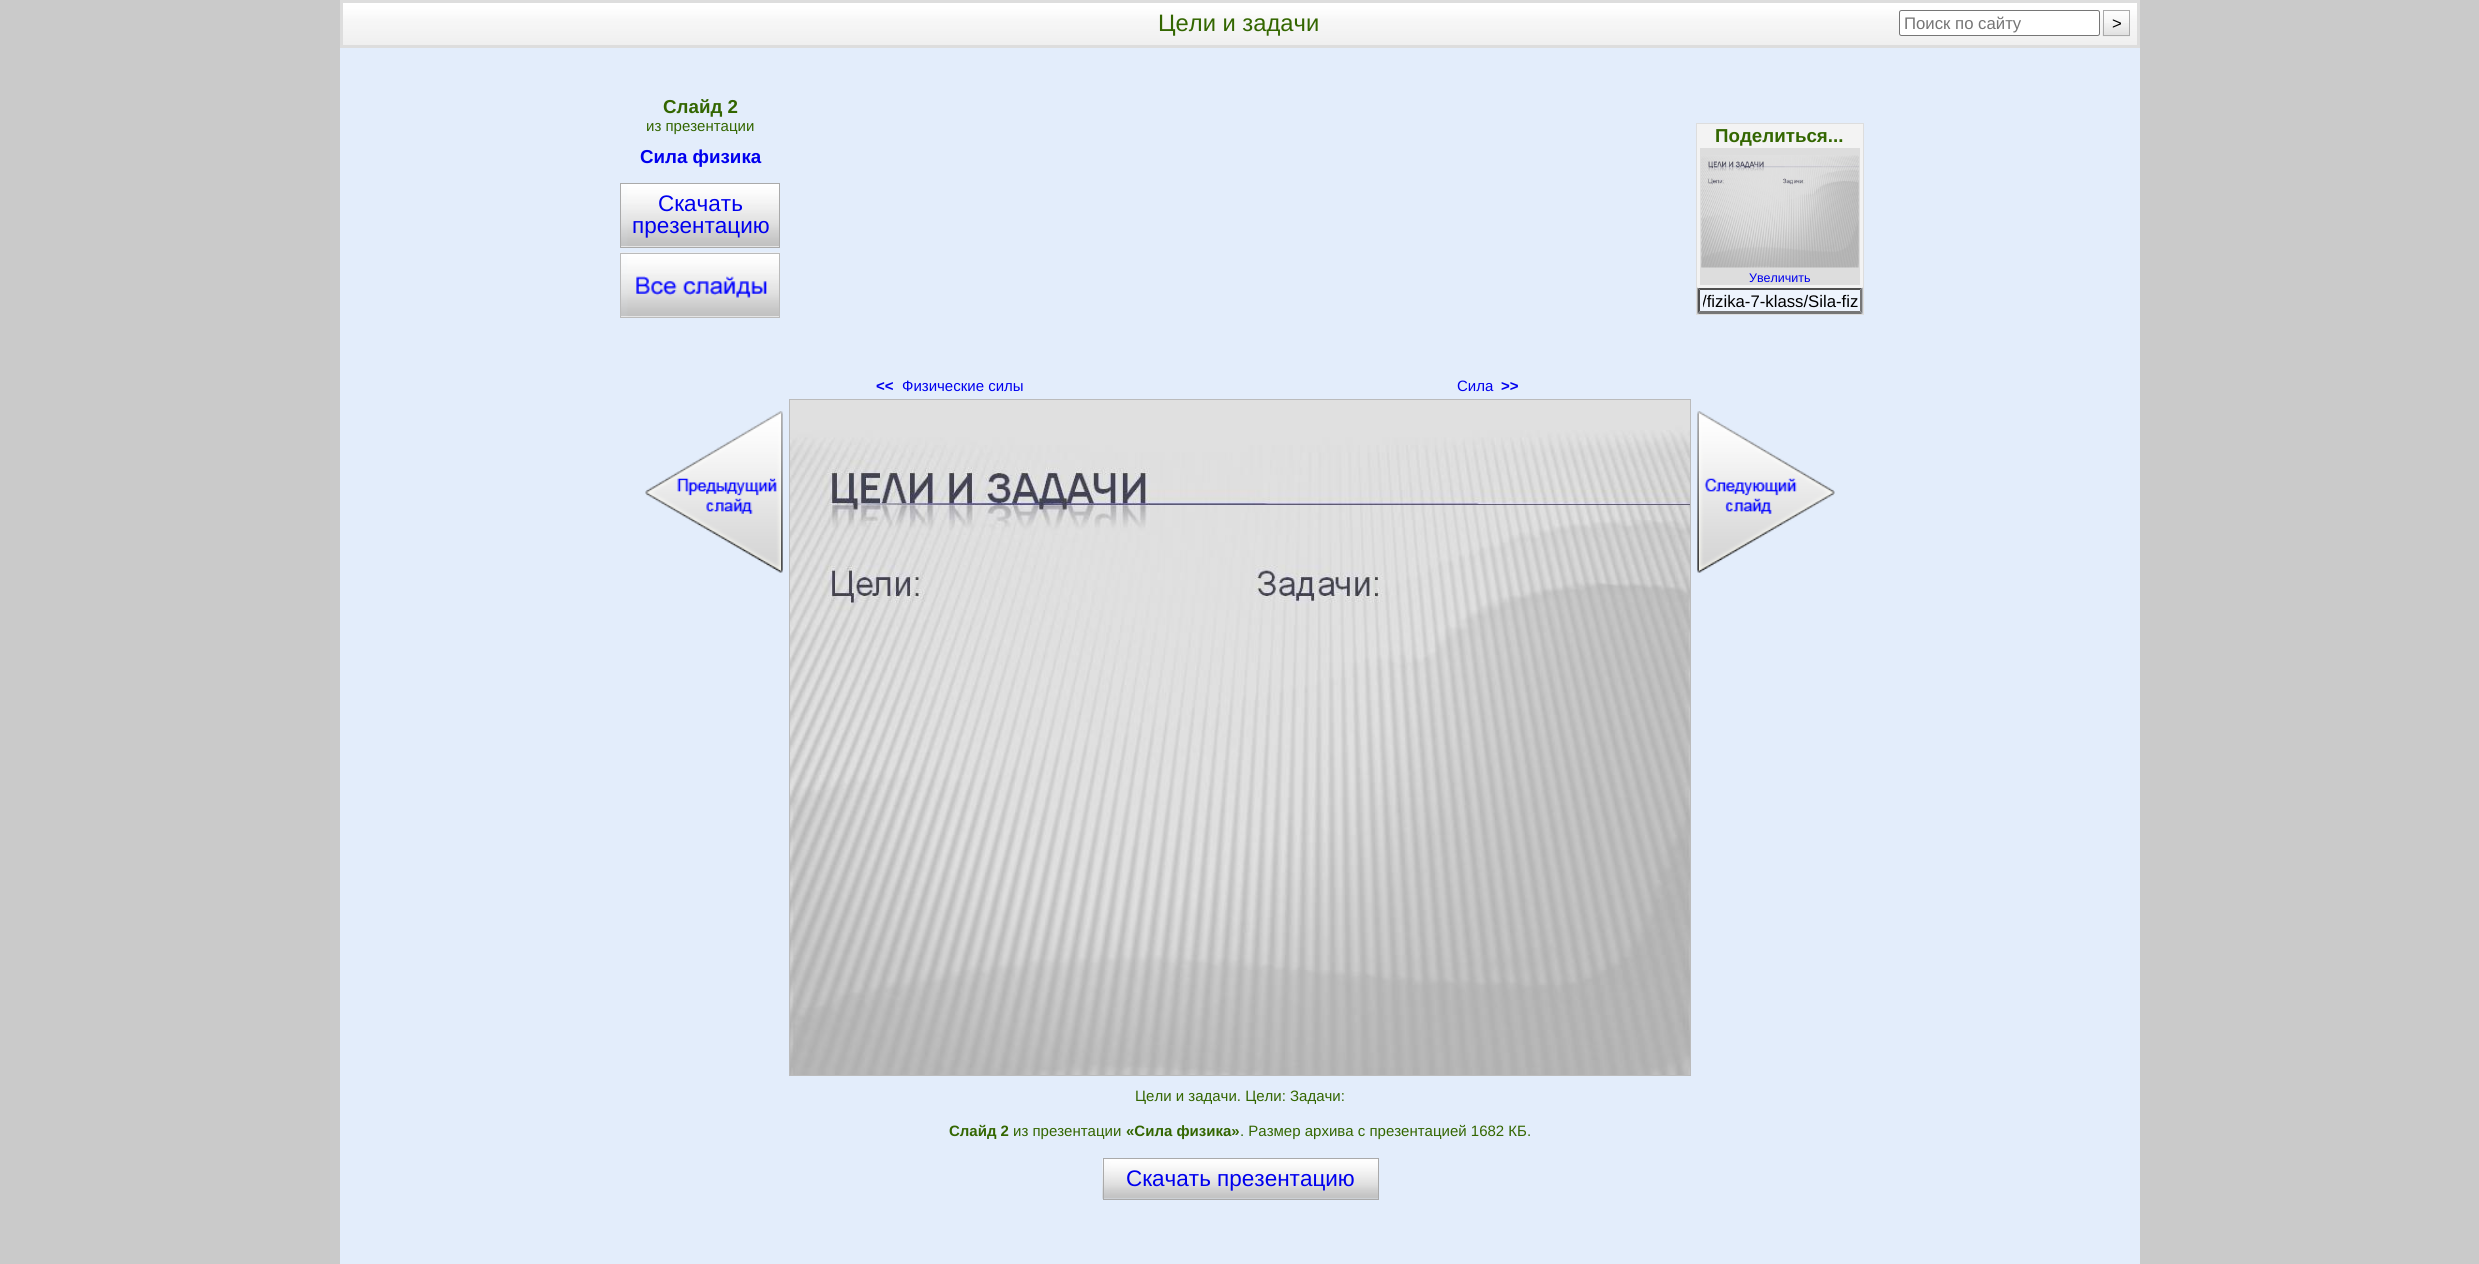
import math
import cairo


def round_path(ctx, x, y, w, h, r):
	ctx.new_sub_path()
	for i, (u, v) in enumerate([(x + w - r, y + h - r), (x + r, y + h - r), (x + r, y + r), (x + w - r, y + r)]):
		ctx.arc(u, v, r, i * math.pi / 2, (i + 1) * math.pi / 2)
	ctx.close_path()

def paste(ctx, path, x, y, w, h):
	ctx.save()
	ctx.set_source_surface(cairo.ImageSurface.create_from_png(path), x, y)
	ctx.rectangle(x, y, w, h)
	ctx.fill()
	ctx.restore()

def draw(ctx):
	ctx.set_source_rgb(0.792, 0.792, 0.792)
	ctx.paint()
	ctx.set_source_rgb(0.89, 0.929, 0.984)
	ctx.rectangle(340, 48, 1800, 1216)
	ctx.fill()
	paste(ctx, 'media/1.png', 343, 3, 1794, 42)
	ctx.rectangle(341.5, 1.5, 1797, 45)
	ctx.set_source_rgb(0.867, 0.867, 0.867)
	ctx.set_line_width(3)
	ctx.stroke()
	ctx.select_font_face('Liberation Sans')
	ctx.set_font_size(23.75)
	ctx.set_source_rgb(0.2, 0.4, 0)
	ctx.move_to(1158, 31)
	ctx.show_text('Цели и задачи')
	ctx.set_source_rgb(1, 1, 1)
	round_path(ctx, 1899.5, 10.5, 200, 25, 2)
	ctx.fill_preserve()
	ctx.set_source_rgb(0.463, 0.463, 0.463)
	ctx.set_line_width(1)
	ctx.stroke()
	ctx.set_font_size(16.75)
	ctx.set_source_rgb(0.459, 0.459, 0.459)
	ctx.move_to(1904, 29)
	ctx.show_text('Поиск по сайту')
	paste(ctx, 'media/2.png', 2102, 23, 28, 14)
	ctx.rectangle(2103.5, 10.5, 26, 25)
	ctx.set_source_rgb(0.667, 0.667, 0.667)
	ctx.stroke()
	ctx.set_source_rgb(0, 0, 0)
	ctx.move_to(2112, 29)
	ctx.show_text('>')
	ctx.select_font_face('Liberation Sans', cairo.FONT_SLANT_NORMAL, cairo.FONT_WEIGHT_BOLD)
	ctx.set_font_size(18.75)
	ctx.set_source_rgb(0.2, 0.4, 0)
	ctx.move_to(663, 113)
	ctx.show_text('Cлайд 2')
	ctx.select_font_face('Liberation Sans')
	ctx.set_font_size(15)
	ctx.move_to(646, 131)
	ctx.show_text('из презентации')
	ctx.select_font_face('Liberation Sans', cairo.FONT_SLANT_NORMAL, cairo.FONT_WEIGHT_BOLD)
	ctx.set_font_size(18.75)
	ctx.set_source_rgb(0, 0, 0.933)
	ctx.move_to(640, 163)
	ctx.show_text('Сила физика')
	paste(ctx, 'media/3.png', 620, 252, 160, 65)
	ctx.rectangle(620.5, 253.5, 159, 64)
	ctx.set_source_rgb(0.733, 0.733, 0.733)
	ctx.stroke()
	paste(ctx, 'media/4.png', 621, 184, 158, 63)
	ctx.rectangle(620.5, 183.5, 159, 64)
	ctx.set_source_rgb(0.667, 0.667, 0.667)
	ctx.stroke()
	ctx.select_font_face('Liberation Sans')
	ctx.set_font_size(22.5)
	ctx.set_source_rgb(0, 0, 0.933)
	ctx.move_to(658, 211)
	ctx.show_text('Скачать')
	ctx.move_to(632, 233)
	ctx.show_text('презентацию')
	ctx.set_source_rgb(0.953, 0.953, 0.953)
	ctx.rectangle(1696.5, 123.5, 167, 191)
	ctx.fill_preserve()
	ctx.set_source_rgb(0.867, 0.867, 0.867)
	ctx.stroke()
	ctx.select_font_face('Liberation Sans', cairo.FONT_SLANT_NORMAL, cairo.FONT_WEIGHT_BOLD)
	ctx.set_font_size(18.75)
	ctx.set_source_rgb(0.2, 0.4, 0)
	ctx.move_to(1715, 142)
	ctx.show_text('Поделиться...')
	ctx.set_source_rgb(0.867, 0.867, 0.867)
	ctx.rectangle(1700, 148, 160, 137)
	ctx.fill()
	paste(ctx, 'media/5.png', 1701, 155, 158, 113)
	ctx.select_font_face('Liberation Sans')
	ctx.set_font_size(12.5)
	ctx.set_source_rgb(0, 0, 0.933)
	ctx.move_to(1749, 282)
	ctx.show_text('Увеличить')
	ctx.set_source_rgb(0.933, 0.957, 0.992)
	ctx.rectangle(1698, 288, 165, 26)
	ctx.fill()
	ctx.set_source_rgb(0.31, 0.31, 0.31)
	ctx.new_path()
	ctx.move_to(1698, 288)
	ctx.line_to(1862, 288)
	ctx.line_to(1860, 290)
	ctx.line_to(1700, 290)
	ctx.close_path()
	ctx.fill()
	ctx.set_source_rgb(0.463, 0.463, 0.463)
	ctx.new_path()
	ctx.move_to(1862.5, 287.5)
	ctx.line_to(1862.5, 314)
	ctx.line_to(1860, 311)
	ctx.line_to(1860, 290)
	ctx.close_path()
	ctx.fill()
	ctx.new_path()
	ctx.move_to(1862, 314)
	ctx.line_to(1698, 314)
	ctx.line_to(1700, 311)
	ctx.line_to(1860, 311)
	ctx.close_path()
	ctx.fill()
	ctx.set_source_rgb(0.31, 0.31, 0.31)
	ctx.new_path()
	ctx.move_to(1697.5, 314)
	ctx.line_to(1697.5, 287.5)
	ctx.line_to(1700, 290)
	ctx.line_to(1700, 311)
	ctx.close_path()
	ctx.fill()
	ctx.save()
	ctx.rectangle(1703, 291, 155, 19)
	ctx.clip()
	ctx.set_font_size(16.75)
	ctx.set_source_rgb(0, 0, 0)
	ctx.move_to(1702, 307)
	ctx.show_text('/fizika-7-klass/Sila-fiz')
	ctx.restore()
	ctx.select_font_face('Liberation Sans', cairo.FONT_SLANT_NORMAL, cairo.FONT_WEIGHT_BOLD)
	ctx.set_font_size(15)
	ctx.set_source_rgb(0, 0, 0.933)
	ctx.move_to(876, 391)
	ctx.show_text('<<')
	ctx.select_font_face('Liberation Sans')
	ctx.move_to(902, 391)
	ctx.show_text('Физические силы')
	paste(ctx, 'media/6.png', 645, 411, 138, 162)
	ctx.move_to(1457, 391)
	ctx.show_text('Сила')
	ctx.select_font_face('Liberation Sans', cairo.FONT_SLANT_NORMAL, cairo.FONT_WEIGHT_BOLD)
	ctx.move_to(1501, 391)
	ctx.show_text('>>')
	paste(ctx, 'media/7.png', 1697, 411, 138, 162)
	ctx.rectangle(789.5, 399.5, 901, 676)
	ctx.set_source_rgb(0.733, 0.733, 0.733)
	ctx.stroke()
	paste(ctx, 'media/8.png', 790, 400, 900, 675)
	ctx.select_font_face('Liberation Sans')
	ctx.set_source_rgb(0.2, 0.4, 0)
	ctx.move_to(1135, 1101)
	ctx.show_text('Цели и задачи. Цели: Задачи:')
	ctx.select_font_face('Liberation Sans', cairo.FONT_SLANT_NORMAL, cairo.FONT_WEIGHT_BOLD)
	ctx.move_to(949, 1136)
	ctx.show_text('Слайд 2')
	ctx.select_font_face('Liberation Sans')
	ctx.move_to(1013, 1136)
	ctx.show_text('из презентации')
	ctx.select_font_face('Liberation Sans', cairo.FONT_SLANT_NORMAL, cairo.FONT_WEIGHT_BOLD)
	ctx.move_to(1126, 1136)
	ctx.show_text('«Сила физика»')
	ctx.select_font_face('Liberation Sans')
	ctx.move_to(1240, 1136)
	ctx.show_text('. Размер архива с презентацией 1682 КБ.')
	paste(ctx, 'media/9.png', 1102, 1158, 276, 41)
	ctx.rectangle(1103.5, 1158.5, 275, 41)
	ctx.set_source_rgb(0.667, 0.667, 0.667)
	ctx.stroke()
	ctx.set_font_size(22.5)
	ctx.set_source_rgb(0, 0, 0.933)
	ctx.move_to(1126, 1186)
	ctx.show_text('Скачать презентацию')


surface = cairo.ImageSurface(cairo.FORMAT_RGB24, 2479, 1264)
ctx = cairo.Context(surface)
options = cairo.FontOptions()
options.set_hint_metrics(cairo.HINT_METRICS_OFF)
options.set_hint_style(cairo.HINT_STYLE_NONE)
ctx.set_font_options(options)
ctx.set_miter_limit(4)
draw(ctx)
surface.write_to_png('image.png')
